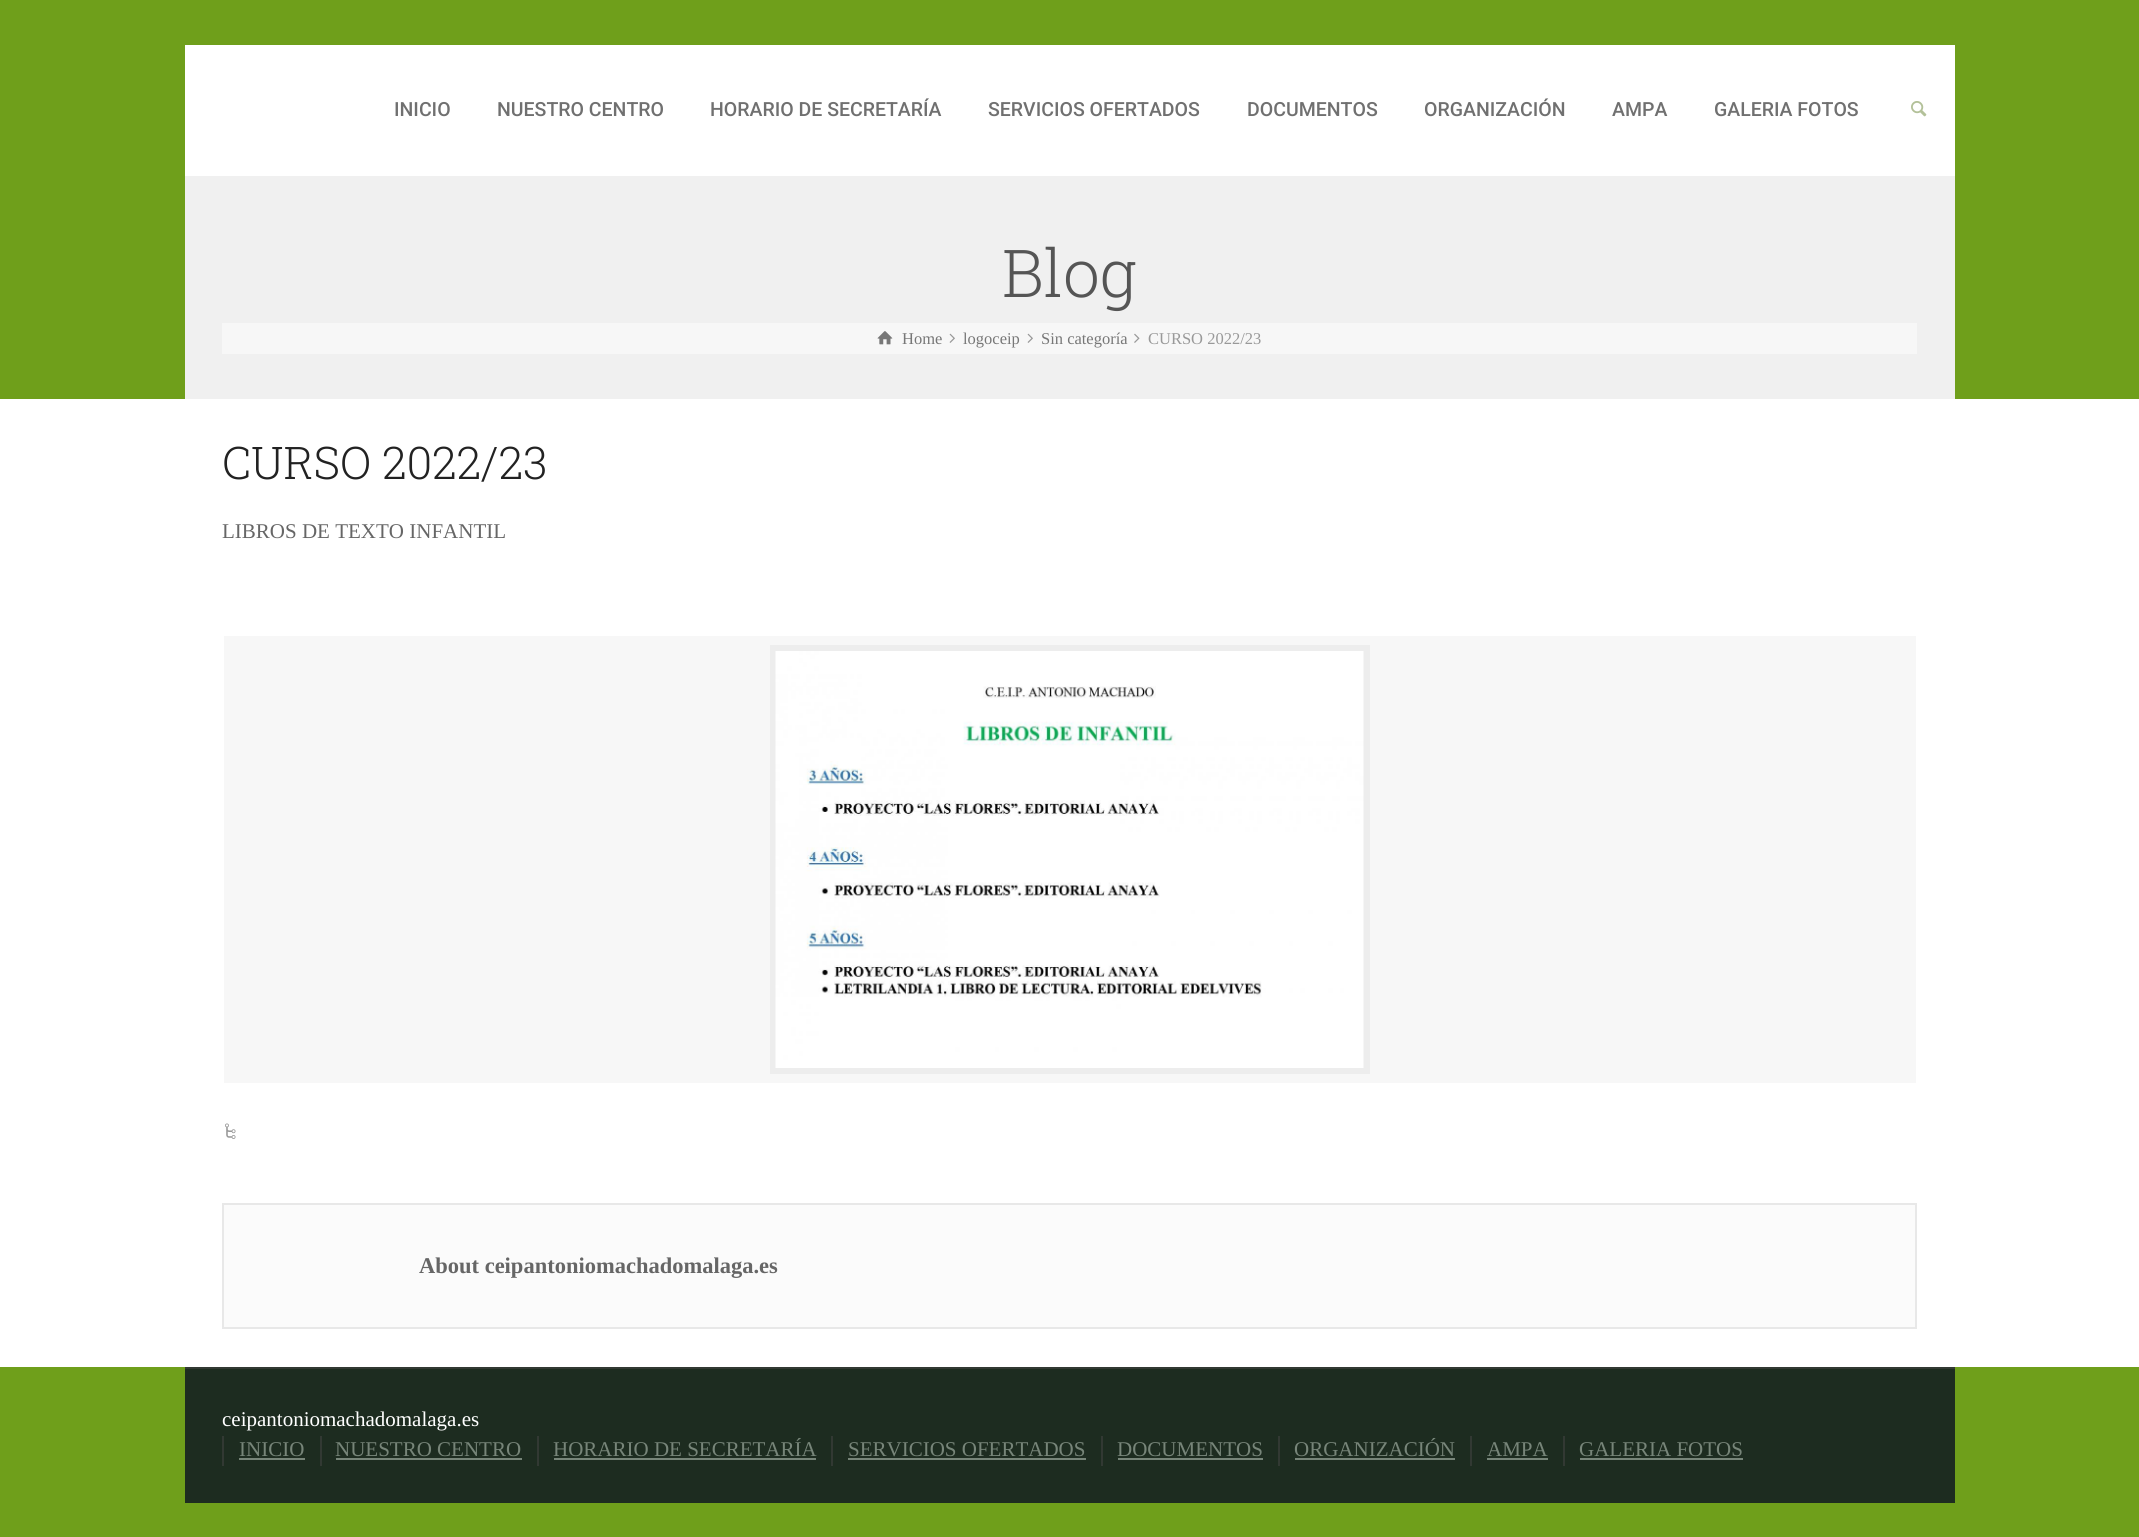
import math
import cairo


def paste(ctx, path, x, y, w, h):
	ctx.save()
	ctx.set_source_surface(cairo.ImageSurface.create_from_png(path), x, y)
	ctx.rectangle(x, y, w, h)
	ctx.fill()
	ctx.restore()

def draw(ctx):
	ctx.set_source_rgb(0.435, 0.624, 0.106)
	ctx.paint()
	ctx.set_source_rgb(1, 1, 1)
	ctx.rectangle(185, 45, 1770, 131)
	ctx.fill()
	ctx.select_font_face('Roboto Medium')
	ctx.set_font_size(19.5)
	ctx.set_source_rgb(0.439, 0.439, 0.439)
	for x, y, s in [
		(394, 116, 'INICIO'),
		(497, 116, 'NUESTRO CENTRO'),
		(710, 116, 'HORARIO DE SECRETARÍA'),
		(988, 116, 'SERVICIOS OFERTADOS'),
		(1247, 116, 'DOCUMENTOS'),
		(1424, 116, 'ORGANIZACIÓN'),
		(1612, 116, 'AMPA'),
		(1714, 116, 'GALERIA FOTOS'),
	]:
		ctx.move_to(x, y)
		ctx.show_text(s)
	paste(ctx, 'media/1.png', 1911, 101, 16, 16)
	ctx.set_source_rgb(0.941, 0.941, 0.941)
	ctx.rectangle(185, 176, 1770, 223)
	ctx.fill()
	ctx.select_font_face('Roboto Slab Light')
	ctx.set_font_size(66)
	ctx.set_source_rgb(0.333, 0.333, 0.333)
	ctx.move_to(1002, 297)
	ctx.show_text('Blog')
	ctx.set_source_rgb(0.965, 0.965, 0.965)
	ctx.rectangle(222, 323, 1695, 31)
	ctx.fill()
	paste(ctx, 'media/2.png', 877, 331, 16, 14)
	ctx.select_font_face('Liberation Serif')
	ctx.set_font_size(16.5)
	ctx.set_source_rgb(0.467, 0.467, 0.467)
	ctx.move_to(902, 344)
	ctx.show_text('Home')
	paste(ctx, 'media/3.png', 949, 333, 6, 10)
	ctx.move_to(963, 344)
	ctx.show_text('logoceip')
	paste(ctx, 'media/3.png', 1027, 333, 6, 10)
	ctx.move_to(1041, 344)
	ctx.show_text('Sin categoría')
	paste(ctx, 'media/4.png', 1134, 333, 6, 10)
	ctx.set_source_rgb(0.6, 0.6, 0.6)
	ctx.move_to(1148, 344)
	ctx.show_text('CURSO 2022/23')
	ctx.set_source_rgb(1, 1, 1)
	ctx.rectangle(0, 399, 2139, 968)
	ctx.fill()
	ctx.select_font_face('Roboto Slab Light')
	ctx.set_font_size(45)
	ctx.set_source_rgb(0.133, 0.133, 0.133)
	ctx.move_to(222, 479)
	ctx.show_text('CURSO 2022/23')
	ctx.select_font_face('Liberation Serif')
	ctx.set_font_size(21)
	ctx.set_source_rgb(0.4, 0.4, 0.4)
	ctx.move_to(222, 538)
	ctx.show_text('LIBROS DE TEXTO INFANTIL')
	ctx.set_source_rgb(0.965, 0.965, 0.965)
	ctx.rectangle(224, 636, 1692, 447)
	ctx.fill()
	ctx.set_source_rgb(0.929, 0.929, 0.929)
	ctx.rectangle(770, 645, 600, 429)
	ctx.fill()
	paste(ctx, 'media/5.png', 775, 651, 589, 417)
	paste(ctx, 'media/6.png', 225, 1123, 11, 16)
	ctx.set_source_rgb(0.984, 0.984, 0.984)
	ctx.rectangle(223, 1204, 1693, 124)
	ctx.fill_preserve()
	ctx.set_source_rgb(0.91, 0.91, 0.91)
	ctx.stroke()
	ctx.select_font_face('Liberation Serif', cairo.FONT_SLANT_NORMAL, cairo.FONT_WEIGHT_BOLD)
	ctx.set_font_size(22.5)
	ctx.set_source_rgb(0.4, 0.4, 0.4)
	ctx.move_to(419, 1273)
	ctx.show_text('About ceipantoniomachadomalaga.es')
	ctx.set_source_rgb(0.114, 0.173, 0.125)
	ctx.rectangle(185, 1369, 1770, 134)
	ctx.fill()
	ctx.set_source_rgb(0.196, 0.224, 0.2)
	ctx.rectangle(185, 1367, 1770, 2)
	ctx.fill()
	ctx.select_font_face('Liberation Serif')
	ctx.set_font_size(21)
	ctx.set_source_rgb(1, 1, 1)
	ctx.move_to(222, 1426)
	ctx.show_text('ceipantoniomachadomalaga.es')
	ctx.set_source_rgb(0.196, 0.224, 0.2)
	ctx.rectangle(222, 1436, 2, 30)
	ctx.fill()
	ctx.set_source_rgb(0.467, 0.522, 0.475)
	ctx.move_to(239, 1456)
	ctx.show_text('INICIO')
	ctx.rectangle(239, 1458, 66, 2)
	ctx.fill()
	ctx.set_source_rgb(0.196, 0.224, 0.2)
	ctx.rectangle(320, 1436, 2, 30)
	ctx.fill()
	ctx.set_source_rgb(0.467, 0.522, 0.475)
	ctx.move_to(335, 1456)
	ctx.show_text('NUESTRO CENTRO')
	ctx.rectangle(336, 1458, 186, 2)
	ctx.fill()
	ctx.set_source_rgb(0.196, 0.224, 0.2)
	ctx.rectangle(537, 1436, 2, 30)
	ctx.fill()
	ctx.set_source_rgb(0.467, 0.522, 0.475)
	ctx.move_to(553, 1456)
	ctx.show_text('HORARIO DE SECRETARÍA')
	ctx.rectangle(554, 1458, 262, 2)
	ctx.fill()
	ctx.set_source_rgb(0.196, 0.224, 0.2)
	ctx.rectangle(831, 1436, 2, 30)
	ctx.fill()
	ctx.set_source_rgb(0.467, 0.522, 0.475)
	ctx.move_to(848, 1456)
	ctx.show_text('SERVICIOS OFERTADOS')
	ctx.rectangle(848, 1458, 238, 2)
	ctx.fill()
	ctx.set_source_rgb(0.196, 0.224, 0.2)
	ctx.rectangle(1101, 1436, 2, 30)
	ctx.fill()
	ctx.set_source_rgb(0.467, 0.522, 0.475)
	ctx.move_to(1117, 1456)
	ctx.show_text('DOCUMENTOS')
	ctx.rectangle(1118, 1458, 145, 2)
	ctx.fill()
	ctx.set_source_rgb(0.196, 0.224, 0.2)
	ctx.rectangle(1278, 1436, 2, 30)
	ctx.fill()
	ctx.set_source_rgb(0.467, 0.522, 0.475)
	ctx.move_to(1294, 1456)
	ctx.show_text('ORGANIZACIÓN')
	ctx.rectangle(1295, 1458, 160, 2)
	ctx.fill()
	ctx.set_source_rgb(0.196, 0.224, 0.2)
	ctx.rectangle(1470, 1436, 2, 30)
	ctx.fill()
	ctx.set_source_rgb(0.467, 0.522, 0.475)
	ctx.move_to(1487, 1456)
	ctx.show_text('AMPA')
	ctx.rectangle(1487, 1458, 61, 2)
	ctx.fill()
	ctx.set_source_rgb(0.196, 0.224, 0.2)
	ctx.rectangle(1563, 1436, 2, 30)
	ctx.fill()
	ctx.set_source_rgb(0.467, 0.522, 0.475)
	ctx.move_to(1579, 1456)
	ctx.show_text('GALERIA FOTOS')
	ctx.rectangle(1580, 1458, 163, 2)
	ctx.fill()


surface = cairo.ImageSurface(cairo.FORMAT_RGB24, 2139, 1537)
ctx = cairo.Context(surface)
options = cairo.FontOptions()
options.set_hint_metrics(cairo.HINT_METRICS_OFF)
options.set_hint_style(cairo.HINT_STYLE_NONE)
ctx.set_font_options(options)
ctx.set_miter_limit(4)
draw(ctx)
surface.write_to_png('image.png')
